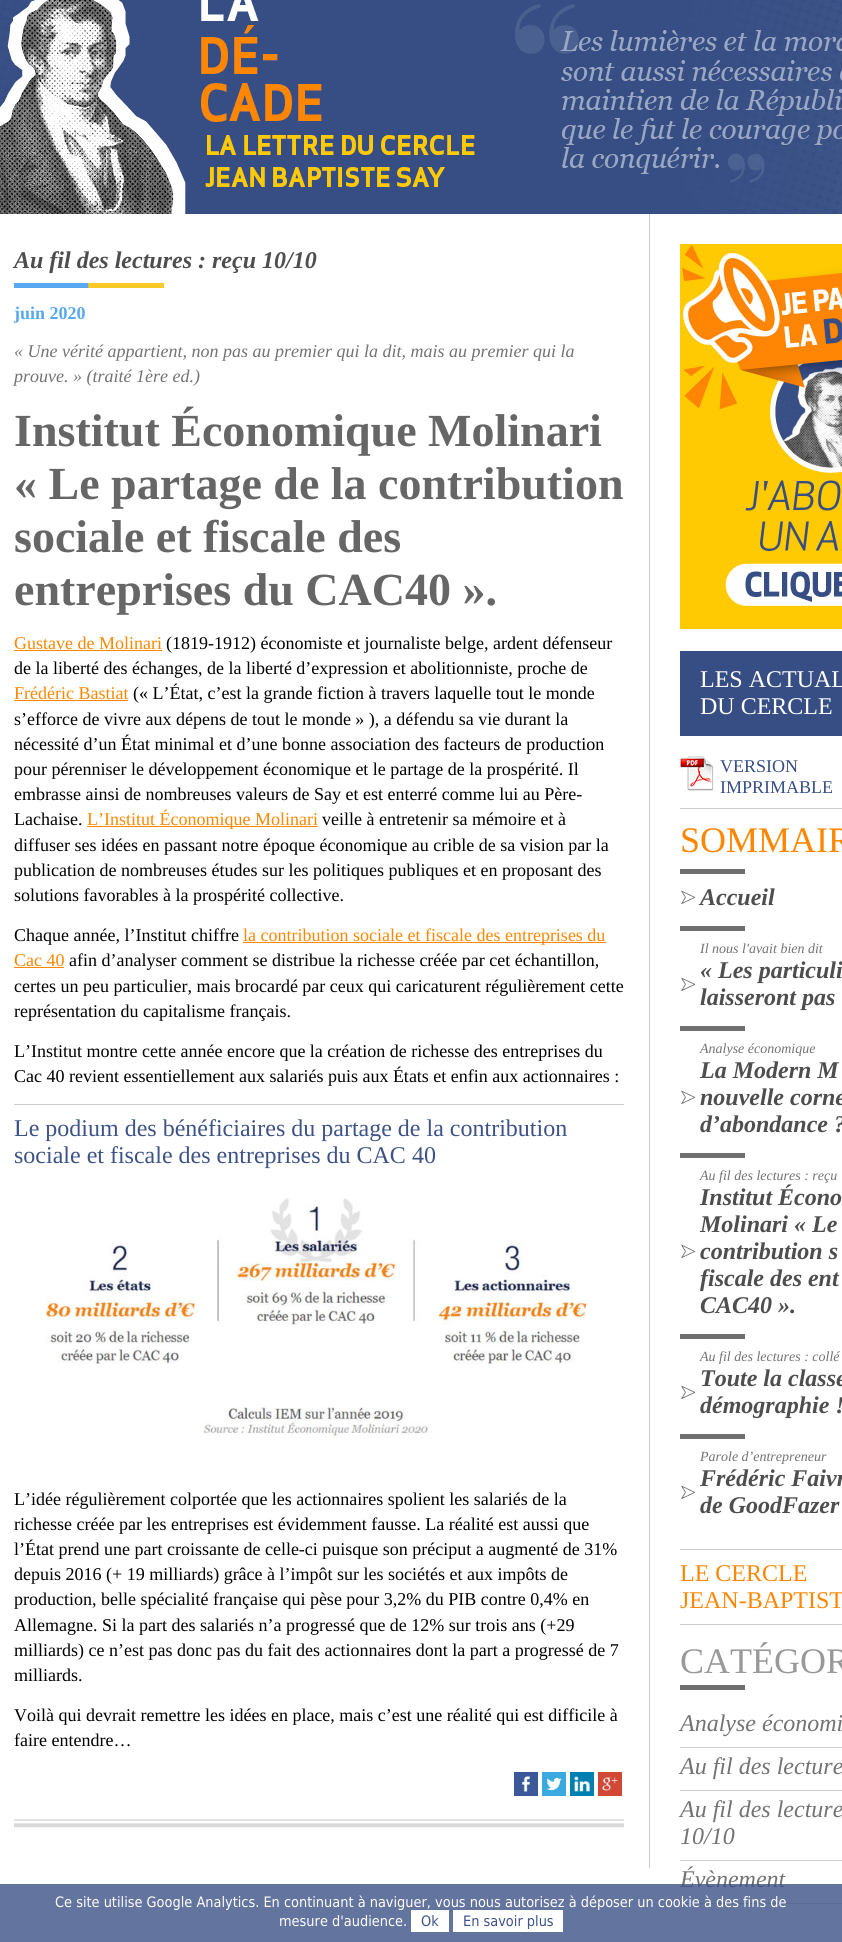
import math
import cairo


def paste(ctx, path, x, y, w, h):
	ctx.save()
	ctx.set_source_surface(cairo.ImageSurface.create_from_png(path), x, y)
	ctx.rectangle(x, y, w, h)
	ctx.fill()
	ctx.restore()

def draw(ctx):
	ctx.set_source_rgb(1, 1, 1)
	ctx.paint()
	paste(ctx, 'media/1.png', 0, 0, 842, 214)
	ctx.set_source_rgb(0.8, 0.8, 0.8)
	ctx.rectangle(649, 214, 1, 1654)
	ctx.fill()
	paste(ctx, 'media/2.png', 14, 1819, 610, 9)
	paste(ctx, 'media/3.png', 14, 283, 150, 5)
	ctx.select_font_face('Liberation Serif', cairo.FONT_SLANT_ITALIC, cairo.FONT_WEIGHT_BOLD)
	ctx.set_font_size(24)
	ctx.set_source_rgb(0.306, 0.306, 0.306)
	ctx.move_to(14, 268)
	ctx.show_text('Au fil des lectures : reçu 10/10')
	ctx.select_font_face('Liberation Serif', cairo.FONT_SLANT_NORMAL, cairo.FONT_WEIGHT_BOLD)
	ctx.set_font_size(18)
	ctx.set_source_rgb(0.345, 0.659, 0.945)
	ctx.move_to(14, 319)
	ctx.show_text('juin 2020')
	ctx.select_font_face('Liberation Serif', cairo.FONT_SLANT_ITALIC)
	ctx.set_source_rgb(0.451, 0.451, 0.451)
	ctx.move_to(14, 357)
	ctx.show_text('« Une vérité appartient, non pas au premier qui la dit, mais au premier qui la')
	ctx.move_to(14, 382)
	ctx.show_text('prouve. » (traité 1ère ed.)')
	ctx.select_font_face('Liberation Serif', cairo.FONT_SLANT_NORMAL, cairo.FONT_WEIGHT_BOLD)
	ctx.set_font_size(46)
	ctx.set_source_rgb(0.4, 0.4, 0.4)
	for x, y, s in [
		(14, 446, 'Institut Économique Molinari'),
		(14, 499, '« Le partage de la contribution'),
		(14, 552, 'sociale et fiscale des'),
		(14, 605, 'entreprises du CAC40 ».'),
	]:
		ctx.move_to(x, y)
		ctx.show_text(s)
	ctx.select_font_face('Liberation Serif')
	ctx.set_font_size(18)
	ctx.set_source_rgb(0.992, 0.529, 0.004)
	ctx.move_to(14, 649)
	ctx.show_text('Gustave de Molinari')
	ctx.rectangle(14, 650, 148, 1)
	ctx.fill()
	ctx.set_source_rgb(0, 0, 0)
	ctx.move_to(166, 649)
	ctx.show_text('(1819-1912) économiste et journaliste belge, ardent défenseur')
	ctx.move_to(14, 674)
	ctx.show_text('de la liberté des échanges, de la liberté d’expression et abolitionniste, proche de')
	ctx.set_source_rgb(0.992, 0.529, 0.004)
	ctx.move_to(14, 699)
	ctx.show_text('Frédéric Bastiat')
	ctx.rectangle(14, 700, 114, 1)
	ctx.fill()
	ctx.set_source_rgb(0, 0, 0)
	for x, y, s in [
		(133, 699, '(« L’État, c’est la grande fiction à travers laquelle tout le monde'),
		(14, 725, 's’efforce de vivre aux dépens de tout le monde » ), a défendu sa vie durant la'),
		(14, 750, 'nécessité d’un État minimal et d’une bonne association des facteurs de production'),
		(14, 775, 'pour pérenniser le développement économique et le partage de la prospérité. Il'),
		(14, 800, 'embrasse ainsi de nombreuses valeurs de Say et est enterré comme lui au Père-'),
		(14, 825, 'Lachaise.'),
	]:
		ctx.move_to(x, y)
		ctx.show_text(s)
	ctx.set_source_rgb(0.992, 0.529, 0.004)
	ctx.rectangle(87, 826, 231, 1)
	ctx.fill()
	ctx.move_to(87, 825)
	ctx.show_text('L’Institut Économique Molinari')
	ctx.set_source_rgb(0, 0, 0)
	for x, y, s in [
		(322, 825, 'veille à entretenir sa mémoire et à'),
		(14, 851, 'diffuser ses idées en passant notre époque économique au crible de sa vision par la'),
		(14, 876, 'publication de nombreuses études sur les politiques publiques et en proposant des'),
		(14, 901, 'solutions favorables à la prospérité collective.'),
		(14, 941, 'Chaque année, l’Institut chiffre'),
	]:
		ctx.move_to(x, y)
		ctx.show_text(s)
	ctx.set_source_rgb(0.992, 0.529, 0.004)
	ctx.rectangle(243, 942, 363, 1)
	ctx.fill()
	ctx.move_to(243, 941)
	ctx.show_text('la contribution sociale et fiscale des entreprises du')
	ctx.move_to(14, 966)
	ctx.show_text('Cac 40')
	ctx.rectangle(14, 967, 50, 1)
	ctx.fill()
	ctx.set_source_rgb(0, 0, 0)
	for x, y, s in [
		(69, 966, 'afin d’analyser comment se distribue la richesse créée par cet échantillon,'),
		(14, 992, 'certes un peu particulier, mais brocardé par ceux qui caricaturent régulièrement cette'),
		(14, 1017, 'représentation du capitalisme français.'),
		(14, 1057, 'L’Institut montre cette année encore que la création de richesse des entreprises du'),
		(14, 1082, 'Cac 40 revient essentiellement aux salariés puis aux États et enfin aux actionnaires :'),
	]:
		ctx.move_to(x, y)
		ctx.show_text(s)
	ctx.set_source_rgb(0.8, 0.8, 0.8)
	ctx.rectangle(14, 1104, 610, 1)
	ctx.fill()
	ctx.set_font_size(24)
	ctx.set_source_rgb(0.239, 0.322, 0.529)
	ctx.move_to(14, 1136)
	ctx.show_text('Le podium des bénéficiaires du partage de la contribution')
	ctx.move_to(14, 1163)
	ctx.show_text('sociale et fiscale des entreprises du CAC 40')
	paste(ctx, 'media/4.png', 45, 1198, 545, 241)
	ctx.set_font_size(18)
	ctx.set_source_rgb(0, 0, 0)
	for x, y, s in [
		(14, 1505, 'L’idée régulièrement colportée que les actionnaires spolient les salariés de la'),
		(14, 1530, 'richesse créée par les entreprises est évidemment fausse. La réalité est aussi que'),
		(14, 1555, 'l’État prend une part croissante de celle-ci puisque son préciput a augmenté de 31%'),
		(14, 1580, 'depuis 2016 (+ 19 milliards) grâce à l’impôt sur les sociétés et aux impôts de'),
		(14, 1605, 'production, belle spécialité française qui pèse pour 3,2% du PIB contre 0,4% en'),
		(14, 1631, 'Allemagne. Si la part des salariés n’a progressé que de 12% sur trois ans (+29'),
		(14, 1656, 'milliards) ce n’est pas donc pas du fait des actionnaires dont la part a progressé de 7'),
		(14, 1681, 'milliards.'),
		(14, 1721, 'Voilà qui devrait remettre les idées en place, mais c’est une réalité qui est difficile à'),
		(14, 1746, 'faire entendre…'),
	]:
		ctx.move_to(x, y)
		ctx.show_text(s)
	paste(ctx, 'media/5.png', 514, 1772, 24, 24)
	paste(ctx, 'media/6.png', 542, 1772, 24, 24)
	paste(ctx, 'media/7.png', 570, 1772, 24, 24)
	paste(ctx, 'media/8.png', 598, 1772, 24, 24)
	paste(ctx, 'media/9.png', 680, 244, 162, 385)
	ctx.set_source_rgb(0.216, 0.306, 0.518)
	ctx.rectangle(680, 651, 162, 85)
	ctx.fill()
	ctx.set_font_size(24)
	ctx.set_source_rgb(1, 1, 1)
	ctx.move_to(700, 687)
	ctx.show_text('LES ACTUAL')
	ctx.move_to(700, 714)
	ctx.show_text('DU CERCLE')
	paste(ctx, 'media/10.png', 680, 756, 34, 35)
	ctx.set_font_size(18)
	ctx.set_source_rgb(0.216, 0.306, 0.518)
	ctx.move_to(720, 772)
	ctx.show_text('VERSION')
	ctx.move_to(720, 793)
	ctx.show_text('IMPRIMABLE')
	ctx.set_source_rgb(0.8, 0.8, 0.8)
	ctx.rectangle(680, 808, 162, 1)
	ctx.fill()
	ctx.set_font_size(36)
	ctx.set_source_rgb(0.992, 0.529, 0.004)
	ctx.move_to(680, 852)
	ctx.show_text('SOMMAIR')
	ctx.set_source_rgb(0.435, 0.435, 0.435)
	ctx.rectangle(680, 869, 65, 5)
	ctx.fill()
	paste(ctx, 'media/11.png', 681, 890, 15, 14)
	ctx.select_font_face('Liberation Serif', cairo.FONT_SLANT_ITALIC, cairo.FONT_WEIGHT_BOLD)
	ctx.set_font_size(24)
	ctx.set_source_rgb(0.306, 0.306, 0.306)
	ctx.move_to(700, 905)
	ctx.show_text('Accueil')
	ctx.set_source_rgb(0.435, 0.435, 0.435)
	ctx.rectangle(680, 926, 65, 5)
	ctx.fill()
	ctx.select_font_face('Liberation Serif', cairo.FONT_SLANT_ITALIC)
	ctx.set_font_size(14)
	ctx.set_source_rgb(0.451, 0.451, 0.451)
	ctx.move_to(700, 953)
	ctx.show_text('Il nous l\'avait bien dit')
	paste(ctx, 'media/11.png', 681, 977, 15, 14)
	ctx.select_font_face('Liberation Serif', cairo.FONT_SLANT_ITALIC, cairo.FONT_WEIGHT_BOLD)
	ctx.set_font_size(24)
	ctx.set_source_rgb(0.306, 0.306, 0.306)
	ctx.move_to(700, 978)
	ctx.show_text('« Les particuli')
	ctx.move_to(700, 1005)
	ctx.show_text('laisseront pas')
	ctx.set_source_rgb(0.435, 0.435, 0.435)
	ctx.rectangle(680, 1026, 65, 5)
	ctx.fill()
	ctx.select_font_face('Liberation Serif', cairo.FONT_SLANT_ITALIC)
	ctx.set_font_size(14)
	ctx.set_source_rgb(0.451, 0.451, 0.451)
	ctx.move_to(700, 1053)
	ctx.show_text('Analyse économique')
	paste(ctx, 'media/11.png', 681, 1090, 15, 14)
	ctx.select_font_face('Liberation Serif', cairo.FONT_SLANT_ITALIC, cairo.FONT_WEIGHT_BOLD)
	ctx.set_font_size(24)
	ctx.set_source_rgb(0.306, 0.306, 0.306)
	for x, y, s in [
		(700, 1078, 'La Modern M'),
		(700, 1105, 'nouvelle corne'),
		(700, 1132, 'd’abondance ?'),
	]:
		ctx.move_to(x, y)
		ctx.show_text(s)
	ctx.set_source_rgb(0.435, 0.435, 0.435)
	ctx.rectangle(680, 1153, 65, 5)
	ctx.fill()
	ctx.select_font_face('Liberation Serif', cairo.FONT_SLANT_ITALIC)
	ctx.set_font_size(14)
	ctx.set_source_rgb(0.451, 0.451, 0.451)
	ctx.move_to(700, 1180)
	ctx.show_text('Au fil des lectures : reçu')
	paste(ctx, 'media/11.png', 681, 1244, 15, 14)
	ctx.select_font_face('Liberation Serif', cairo.FONT_SLANT_ITALIC, cairo.FONT_WEIGHT_BOLD)
	ctx.set_font_size(24)
	ctx.set_source_rgb(0.306, 0.306, 0.306)
	for x, y, s in [
		(700, 1205, 'Institut Écono'),
		(700, 1232, 'Molinari « Le'),
		(700, 1259, 'contribution s'),
		(700, 1286, 'fiscale des ent'),
		(700, 1313, 'CAC40 ».'),
	]:
		ctx.move_to(x, y)
		ctx.show_text(s)
	ctx.set_source_rgb(0.435, 0.435, 0.435)
	ctx.rectangle(680, 1334, 65, 5)
	ctx.fill()
	ctx.select_font_face('Liberation Serif', cairo.FONT_SLANT_ITALIC)
	ctx.set_font_size(14)
	ctx.set_source_rgb(0.451, 0.451, 0.451)
	ctx.move_to(700, 1361)
	ctx.show_text('Au fil des lectures : collé')
	paste(ctx, 'media/11.png', 681, 1385, 15, 14)
	ctx.select_font_face('Liberation Serif', cairo.FONT_SLANT_ITALIC, cairo.FONT_WEIGHT_BOLD)
	ctx.set_font_size(24)
	ctx.set_source_rgb(0.306, 0.306, 0.306)
	ctx.move_to(700, 1386)
	ctx.show_text('Toute la classe')
	ctx.move_to(700, 1413)
	ctx.show_text('démographie !')
	ctx.set_source_rgb(0.435, 0.435, 0.435)
	ctx.rectangle(680, 1434, 65, 5)
	ctx.fill()
	ctx.select_font_face('Liberation Serif', cairo.FONT_SLANT_ITALIC)
	ctx.set_font_size(14)
	ctx.set_source_rgb(0.451, 0.451, 0.451)
	ctx.move_to(700, 1461)
	ctx.show_text('Parole d’entrepreneur')
	paste(ctx, 'media/11.png', 681, 1485, 15, 14)
	ctx.select_font_face('Liberation Serif', cairo.FONT_SLANT_ITALIC, cairo.FONT_WEIGHT_BOLD)
	ctx.set_font_size(24)
	ctx.set_source_rgb(0.306, 0.306, 0.306)
	ctx.move_to(700, 1486)
	ctx.show_text('Frédéric Faivr')
	ctx.move_to(700, 1513)
	ctx.show_text('de GoodFazer')
	ctx.set_source_rgb(0.8, 0.8, 0.8)
	ctx.rectangle(680, 1549, 162, 1)
	ctx.fill()
	ctx.rectangle(680, 1624, 162, 1)
	ctx.fill()
	ctx.select_font_face('Liberation Serif')
	ctx.set_source_rgb(0.992, 0.529, 0.004)
	ctx.move_to(680, 1581)
	ctx.show_text('LE CERCLE')
	ctx.move_to(680, 1608)
	ctx.show_text('JEAN-BAPTIST')
	ctx.set_source_rgb(0.435, 0.435, 0.435)
	ctx.rectangle(680, 1685, 65, 5)
	ctx.fill()
	ctx.set_font_size(36)
	ctx.set_source_rgb(0.6, 0.6, 0.6)
	ctx.move_to(680, 1673)
	ctx.show_text('CATÉGOR')
	ctx.set_source_rgb(0.8, 0.8, 0.8)
	ctx.rectangle(680, 1747, 162, 1)
	ctx.fill()
	ctx.select_font_face('Liberation Serif', cairo.FONT_SLANT_ITALIC)
	ctx.set_font_size(24)
	ctx.set_source_rgb(0.451, 0.451, 0.451)
	ctx.move_to(680, 1731)
	ctx.show_text('Analyse économi')
	ctx.set_source_rgb(0.8, 0.8, 0.8)
	ctx.rectangle(680, 1790, 162, 1)
	ctx.fill()
	ctx.set_source_rgb(0.451, 0.451, 0.451)
	ctx.move_to(680, 1774)
	ctx.show_text('Au fil des lecture')
	ctx.set_source_rgb(0.8, 0.8, 0.8)
	ctx.rectangle(680, 1860, 162, 1)
	ctx.fill()
	ctx.set_source_rgb(0.451, 0.451, 0.451)
	ctx.move_to(680, 1817)
	ctx.show_text('Au fil des lecture')
	ctx.move_to(680, 1844)
	ctx.show_text('10/10')
	ctx.set_source_rgb(0.8, 0.8, 0.8)
	ctx.rectangle(680, 1903, 162, 1)
	ctx.fill()
	ctx.set_source_rgb(0.451, 0.451, 0.451)
	ctx.move_to(680, 1887)
	ctx.show_text('Évènement')
	ctx.set_source_rgba(0.239, 0.322, 0.529, 0.8)
	ctx.rectangle(0, 1884, 842, 58)
	ctx.fill()
	ctx.select_font_face('DejaVu Sans')
	ctx.set_font_size(14.4)
	ctx.set_source_rgb(1, 1, 1)
	ctx.move_to(55, 1907)
	ctx.show_text('Ce site utilise Google Analytics. En continuant à naviguer, vous nous autorisez à déposer un cookie à des fins de')
	ctx.move_to(279, 1926)
	ctx.show_text('mesure d\'audience.')
	ctx.rectangle(411, 1910, 38, 22)
	ctx.fill()
	ctx.set_source_rgb(0.239, 0.322, 0.529)
	ctx.move_to(421, 1926)
	ctx.show_text('Ok')
	ctx.set_source_rgb(1, 1, 1)
	ctx.rectangle(453, 1910, 110, 22)
	ctx.fill()
	ctx.set_source_rgb(0.239, 0.322, 0.529)
	ctx.move_to(463, 1926)
	ctx.show_text('En savoir plus')


surface = cairo.ImageSurface(cairo.FORMAT_RGB24, 842, 1942)
ctx = cairo.Context(surface)
options = cairo.FontOptions()
options.set_hint_metrics(cairo.HINT_METRICS_OFF)
options.set_hint_style(cairo.HINT_STYLE_NONE)
ctx.set_font_options(options)
ctx.set_miter_limit(4)
draw(ctx)
surface.write_to_png('image.png')
